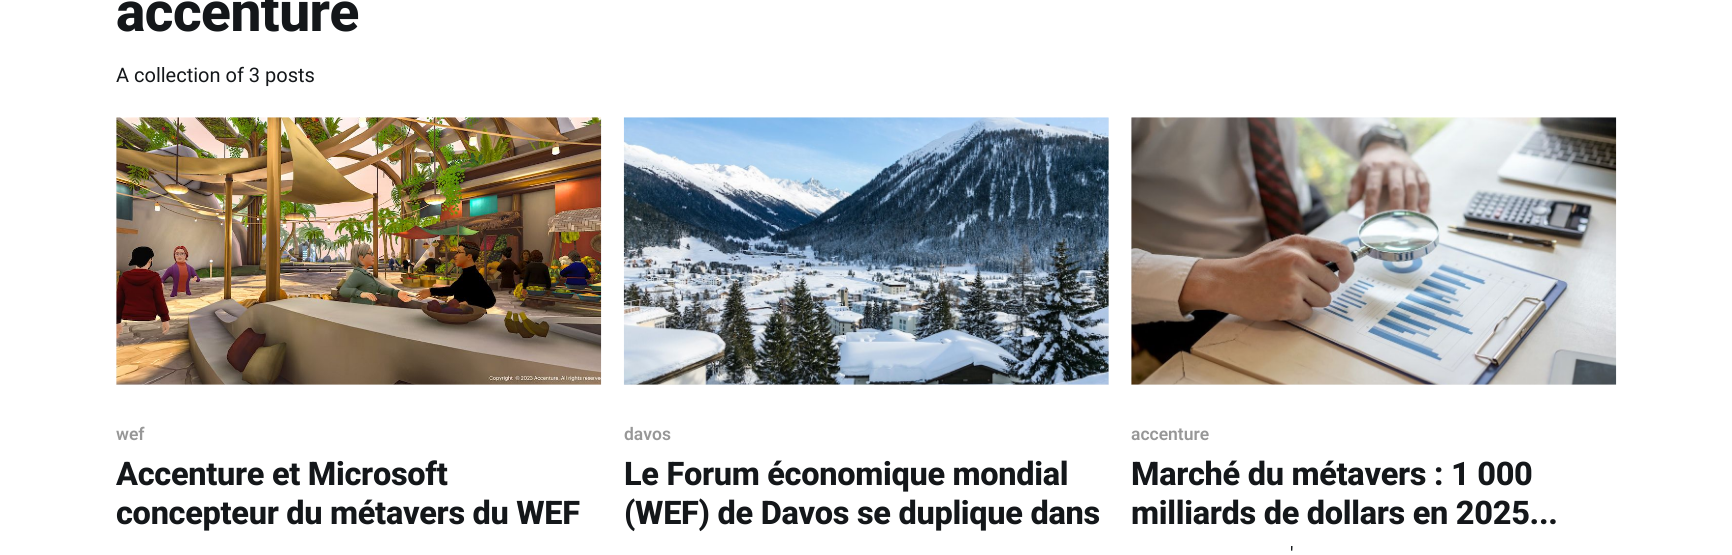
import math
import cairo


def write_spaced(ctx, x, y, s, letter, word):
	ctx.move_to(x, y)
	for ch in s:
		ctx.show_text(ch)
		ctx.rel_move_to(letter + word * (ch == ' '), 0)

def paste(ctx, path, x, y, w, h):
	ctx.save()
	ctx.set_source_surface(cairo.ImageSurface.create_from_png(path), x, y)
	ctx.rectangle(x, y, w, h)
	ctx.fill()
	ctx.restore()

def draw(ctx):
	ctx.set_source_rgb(1, 1, 1)
	ctx.paint()
	ctx.select_font_face('Roboto ExtraBold')
	ctx.set_font_size(55)
	ctx.set_source_rgb(0.082, 0.09, 0.102)
	write_spaced(ctx, 116, 31, 'accenture', -0.5, 0)
	ctx.select_font_face('Roboto')
	ctx.set_font_size(20)
	ctx.move_to(116, 82)
	ctx.show_text('A collection of 3 posts')
	ctx.set_source_rgb(0.945, 0.945, 0.945)
	ctx.rectangle(116, 118, 485, 267)
	ctx.fill()
	paste(ctx, 'media/1.png', 116, 117, 486, 268)
	ctx.select_font_face('Roboto SemiBold')
	ctx.set_font_size(17.5)
	ctx.set_source_rgb(0.592, 0.592, 0.592)
	ctx.move_to(116, 440)
	ctx.show_text('wef')
	ctx.select_font_face('Roboto ExtraBold')
	ctx.set_font_size(32.5)
	ctx.set_source_rgb(0.082, 0.09, 0.102)
	write_spaced(ctx, 116, 485, 'Accenture et Microsoft', -0.3, 0)
	write_spaced(ctx, 116, 524, 'concepteur du métavers du WEF', -0.3, 0)
	ctx.set_source_rgb(0.945, 0.945, 0.945)
	ctx.rectangle(624, 118, 485, 267)
	ctx.fill()
	paste(ctx, 'media/2.png', 623, 117, 486, 268)
	ctx.select_font_face('Roboto SemiBold')
	ctx.set_font_size(17.5)
	ctx.set_source_rgb(0.592, 0.592, 0.592)
	ctx.move_to(624, 440)
	ctx.show_text('davos')
	ctx.select_font_face('Roboto ExtraBold')
	ctx.set_font_size(32.5)
	ctx.set_source_rgb(0.082, 0.09, 0.102)
	write_spaced(ctx, 624, 485, 'Le Forum économique mondial', -0.3, 0)
	write_spaced(ctx, 624, 524, '(WEF) de Davos se duplique dans', -0.3, 0)
	ctx.set_source_rgb(0.945, 0.945, 0.945)
	ctx.rectangle(1131, 118, 485, 267)
	ctx.fill()
	paste(ctx, 'media/3.png', 1131, 117, 486, 268)
	ctx.select_font_face('Roboto SemiBold')
	ctx.set_font_size(17.5)
	ctx.set_source_rgb(0.592, 0.592, 0.592)
	ctx.move_to(1131, 440)
	ctx.show_text('accenture')
	ctx.select_font_face('Roboto ExtraBold')
	ctx.set_font_size(32.5)
	ctx.set_source_rgb(0.082, 0.09, 0.102)
	write_spaced(ctx, 1131, 485, 'Marché du métavers : 1 000', -0.3, 0)
	write_spaced(ctx, 1131, 524, 'milliards de dollars en 2025...', -0.3, 0)
	ctx.select_font_face('Roboto')
	ctx.set_font_size(20)
	ctx.move_to(1290, 561)
	ctx.show_text('\'')


surface = cairo.ImageSurface(cairo.FORMAT_RGB24, 1732, 555)
ctx = cairo.Context(surface)
options = cairo.FontOptions()
options.set_hint_metrics(cairo.HINT_METRICS_OFF)
options.set_hint_style(cairo.HINT_STYLE_NONE)
ctx.set_font_options(options)
ctx.set_miter_limit(4)
draw(ctx)
surface.write_to_png('image.png')
